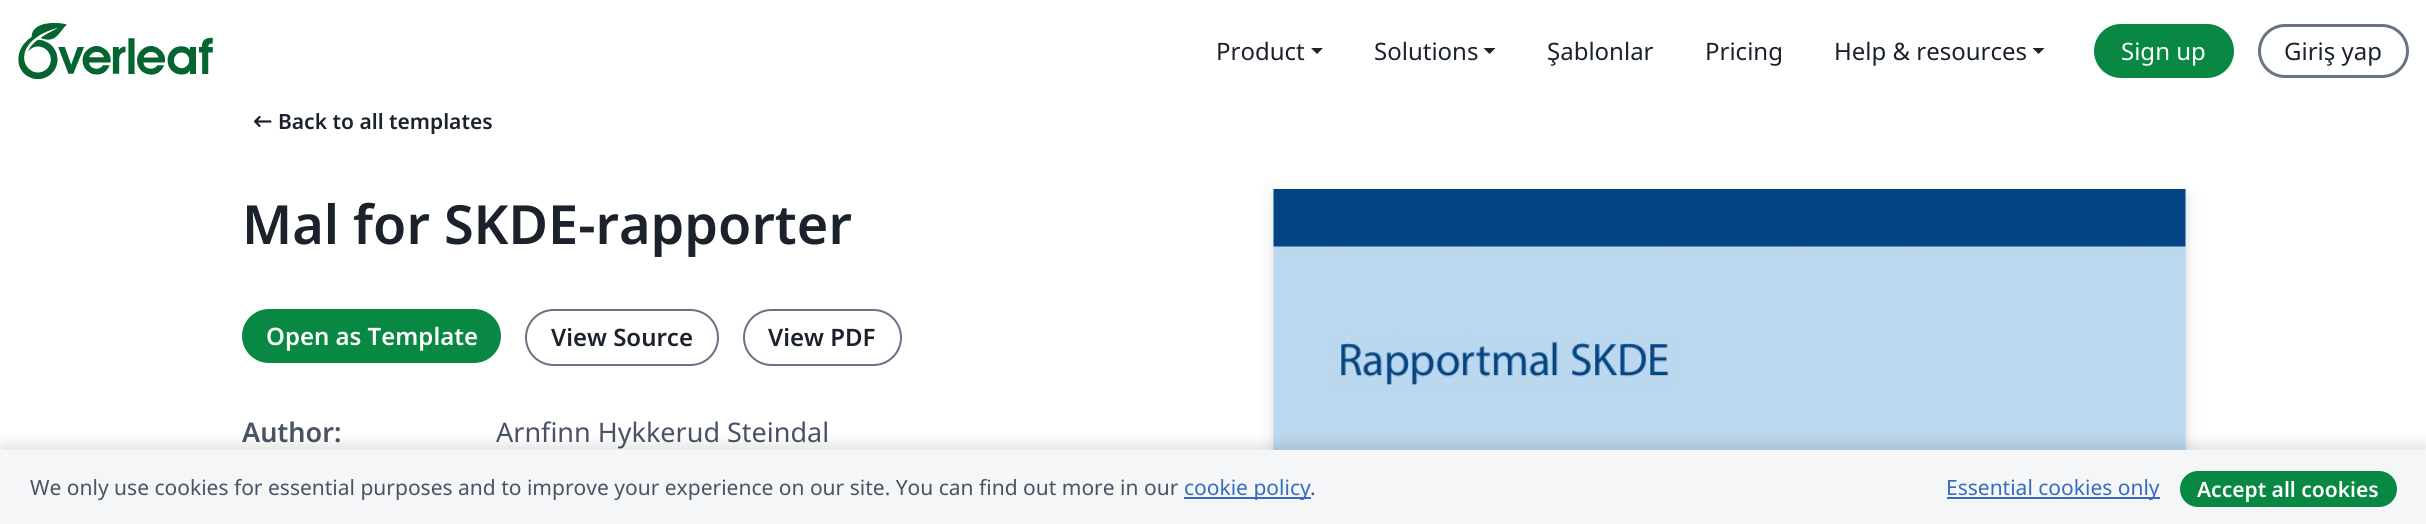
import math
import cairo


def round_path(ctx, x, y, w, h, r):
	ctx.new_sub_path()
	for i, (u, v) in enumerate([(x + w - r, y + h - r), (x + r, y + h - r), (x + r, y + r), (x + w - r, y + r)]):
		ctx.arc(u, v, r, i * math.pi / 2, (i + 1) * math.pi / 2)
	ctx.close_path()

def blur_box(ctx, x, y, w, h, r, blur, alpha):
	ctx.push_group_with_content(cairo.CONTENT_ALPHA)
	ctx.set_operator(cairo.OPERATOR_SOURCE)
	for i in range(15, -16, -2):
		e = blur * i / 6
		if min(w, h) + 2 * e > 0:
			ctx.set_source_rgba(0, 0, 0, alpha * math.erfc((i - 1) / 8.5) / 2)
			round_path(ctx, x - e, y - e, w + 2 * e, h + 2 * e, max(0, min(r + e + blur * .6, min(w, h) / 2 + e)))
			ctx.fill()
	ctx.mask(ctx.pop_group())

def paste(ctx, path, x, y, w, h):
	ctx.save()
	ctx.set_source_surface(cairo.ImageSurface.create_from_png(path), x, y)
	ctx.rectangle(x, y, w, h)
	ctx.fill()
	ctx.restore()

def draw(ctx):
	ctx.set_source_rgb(1, 1, 1)
	ctx.paint()
	paste(ctx, 'media/1.png', 18, 23, 195, 56)
	ctx.select_font_face('Noto Sans')
	ctx.set_font_size(24)
	ctx.set_source_rgb(0.106, 0.133, 0.173)
	ctx.move_to(1216, 60)
	ctx.show_text('Product')
	ctx.new_path()
	ctx.move_to(1311, 48)
	ctx.line_to(1323, 48)
	ctx.line_to(1317, 54)
	ctx.close_path()
	ctx.fill()
	ctx.move_to(1374, 60)
	ctx.show_text('Solutions')
	ctx.new_path()
	ctx.move_to(1483.5, 48)
	ctx.line_to(1495.5, 48)
	ctx.line_to(1489.5, 54)
	ctx.close_path()
	ctx.fill()
	for x, y, s in [
		(1547, 60, 'Şablonlar'),
		(1705, 60, 'Pricing'),
		(1834, 60, 'Help & resources'),
	]:
		ctx.move_to(x, y)
		ctx.show_text(s)
	ctx.new_path()
	ctx.move_to(2032.5, 48)
	ctx.line_to(2044.5, 48)
	ctx.line_to(2038.5, 54)
	ctx.close_path()
	ctx.fill()
	ctx.set_source_rgb(0.035, 0.533, 0.259)
	round_path(ctx, 2095.5, 25.5, 137, 51, 25.5)
	ctx.fill_preserve()
	ctx.set_line_width(3)
	ctx.stroke()
	ctx.set_source_rgb(1, 1, 1)
	ctx.move_to(2121, 60)
	ctx.show_text('Sign up')
	round_path(ctx, 2259.5, 25.5, 148, 51, 25.5)
	ctx.set_source_rgb(0.404, 0.447, 0.514)
	ctx.stroke()
	ctx.set_source_rgb(0.106, 0.133, 0.173)
	ctx.move_to(2284, 60)
	ctx.show_text('Giriş yap')
	paste(ctx, 'media/2.png', 254, 116, 18, 11)
	ctx.select_font_face('Noto Sans SemiBold')
	ctx.set_font_size(21)
	ctx.move_to(278, 129)
	ctx.show_text('Back to all templates')
	ctx.set_font_size(54)
	ctx.move_to(242, 244)
	ctx.show_text('Mal for SKDE-rapporter')
	ctx.set_source_rgb(0.035, 0.533, 0.259)
	round_path(ctx, 242, 309, 259, 54, 27)
	ctx.fill()
	ctx.set_font_size(24)
	ctx.set_source_rgb(1, 1, 1)
	ctx.move_to(266, 345)
	ctx.show_text('Open as Template')
	round_path(ctx, 526, 310, 192, 55, 27.5)
	ctx.set_source_rgb(0.404, 0.447, 0.514)
	ctx.set_line_width(2)
	ctx.stroke()
	ctx.set_source_rgb(0.106, 0.133, 0.173)
	ctx.move_to(551, 346)
	ctx.show_text('View Source')
	round_path(ctx, 744, 310, 157, 55, 27.5)
	ctx.set_source_rgb(0.404, 0.447, 0.514)
	ctx.stroke()
	ctx.set_source_rgb(0.106, 0.133, 0.173)
	ctx.move_to(768, 346)
	ctx.show_text('View PDF')
	ctx.set_font_size(27)
	ctx.set_source_rgb(0.286, 0.325, 0.396)
	ctx.move_to(242, 442)
	ctx.show_text('Author:')
	ctx.select_font_face('Noto Sans')
	ctx.move_to(496, 442)
	ctx.show_text('Arnfinn Hykkerud Steindal')
	ctx.set_source_rgb(0.118, 0.145, 0.188)
	blur_box(ctx, 1274, 192, 912, 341, 0, 3, 0.08)
	blur_box(ctx, 1274, 195, 912, 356, 0, 9, 0.12)
	paste(ctx, 'media/3.png', 1273, 189, 913, 261)
	ctx.set_source_rgb(0, 0, 0)
	blur_box(ctx, 0, 443, 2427, 75, 0, 6, 0.1)
	ctx.set_source_rgb(0.957, 0.961, 0.965)
	ctx.rectangle(0, 450, 2426, 74)
	ctx.fill()
	ctx.set_font_size(21)
	ctx.set_source_rgb(0.286, 0.325, 0.396)
	ctx.move_to(30, 495)
	ctx.show_text('We only use cookies for essential purposes and to improve your experience on our site. You can find out more in our')
	ctx.set_source_rgb(0.212, 0.424, 0.749)
	ctx.rectangle(1184, 497, 127, 2)
	ctx.fill()
	ctx.move_to(1184, 495)
	ctx.show_text('cookie policy')
	ctx.set_source_rgb(0.286, 0.325, 0.396)
	ctx.move_to(1310, 495)
	ctx.show_text('.')
	ctx.set_source_rgb(0.212, 0.424, 0.749)
	ctx.rectangle(1947, 497, 213, 2)
	ctx.fill()
	ctx.move_to(1946, 495)
	ctx.show_text('Essential cookies only')
	ctx.set_source_rgb(0.035, 0.533, 0.259)
	round_path(ctx, 2180, 471, 217, 36, 18)
	ctx.fill()
	ctx.select_font_face('Noto Sans SemiBold')
	ctx.set_source_rgb(1, 1, 1)
	ctx.move_to(2197, 497)
	ctx.show_text('Accept all cookies')


surface = cairo.ImageSurface(cairo.FORMAT_RGB24, 2426, 524)
ctx = cairo.Context(surface)
options = cairo.FontOptions()
options.set_hint_metrics(cairo.HINT_METRICS_OFF)
options.set_hint_style(cairo.HINT_STYLE_NONE)
ctx.set_font_options(options)
ctx.set_miter_limit(4)
draw(ctx)
surface.write_to_png('image.png')
